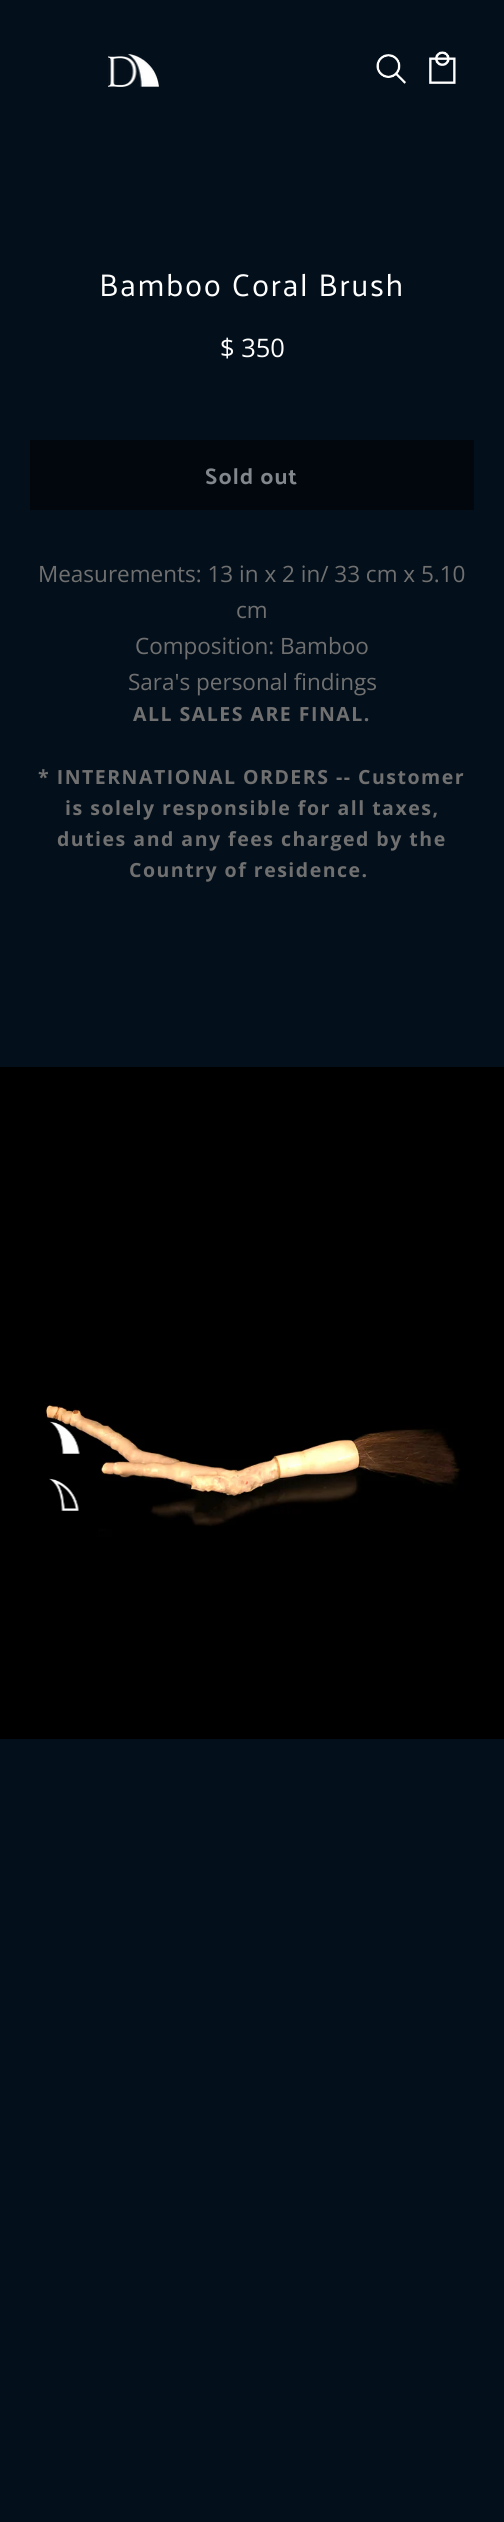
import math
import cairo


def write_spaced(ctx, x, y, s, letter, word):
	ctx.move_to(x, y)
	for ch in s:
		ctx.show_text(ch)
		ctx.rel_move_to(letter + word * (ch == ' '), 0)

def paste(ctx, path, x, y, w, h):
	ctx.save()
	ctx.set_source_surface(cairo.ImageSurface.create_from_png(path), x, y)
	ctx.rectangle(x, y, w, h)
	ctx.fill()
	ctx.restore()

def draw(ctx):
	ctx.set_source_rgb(0.012, 0.059, 0.102)
	ctx.paint()
	paste(ctx, 'media/1.png', 108, 54, 51, 33)
	paste(ctx, 'media/2.png', 376, 54, 30, 30)
	paste(ctx, 'media/3.png', 429, 51, 27, 33)
	ctx.select_font_face('Palanquin')
	ctx.set_font_size(31.5)
	ctx.set_source_rgb(1, 1, 1)
	write_spaced(ctx, 99, 296, 'Bamboo Coral Brush', 1.6, 0)
	ctx.select_font_face('Open Sans')
	ctx.set_font_size(25.5)
	ctx.move_to(220, 357)
	ctx.show_text('$ 350')
	ctx.set_source_rgb(0.008, 0.031, 0.051)
	ctx.rectangle(30, 440, 444, 70)
	ctx.fill()
	ctx.select_font_face('Palanquin', cairo.FONT_SLANT_NORMAL, cairo.FONT_WEIGHT_BOLD)
	ctx.set_font_size(22.5)
	ctx.set_source_rgb(0.506, 0.529, 0.553)
	write_spaced(ctx, 205, 484, 'Sold out', 1, 0)
	ctx.select_font_face('Open Sans')
	ctx.set_source_rgb(0.439, 0.439, 0.439)
	for x, y, s in [
		(38, 582, 'Measurements: 13 in x 2 in/ 33 cm x 5.10'),
		(236, 618, 'cm'),
		(135, 654, 'Composition: Bamboo'),
		(128, 690, 'Sara\'s personal findings'),
	]:
		ctx.move_to(x, y)
		ctx.show_text(s)
	ctx.select_font_face('Open Sans', cairo.FONT_SLANT_NORMAL, cairo.FONT_WEIGHT_BOLD)
	ctx.set_font_size(19.5)
	for x, y, s in [
		(133, 721, 'ALL SALES ARE FINAL.'),
		(38, 784, '* INTERNATIONAL ORDERS -- Customer'),
		(65, 815, 'is solely responsible for all taxes,'),
		(57, 846, 'duties and any fees charged by the'),
		(129, 877, 'Country of residence.'),
	]:
		write_spaced(ctx, x, y, s, 1.5, 0)
	paste(ctx, 'media/4.png', 0, 1067, 504, 672)
	paste(ctx, 'media/5.png', 49, 1421, 31, 33)
	paste(ctx, 'media/6.png', 49, 1478, 30, 33)


surface = cairo.ImageSurface(cairo.FORMAT_RGB24, 504, 2522)
ctx = cairo.Context(surface)
options = cairo.FontOptions()
options.set_hint_metrics(cairo.HINT_METRICS_OFF)
options.set_hint_style(cairo.HINT_STYLE_NONE)
ctx.set_font_options(options)
ctx.set_miter_limit(4)
draw(ctx)
surface.write_to_png('image.png')
